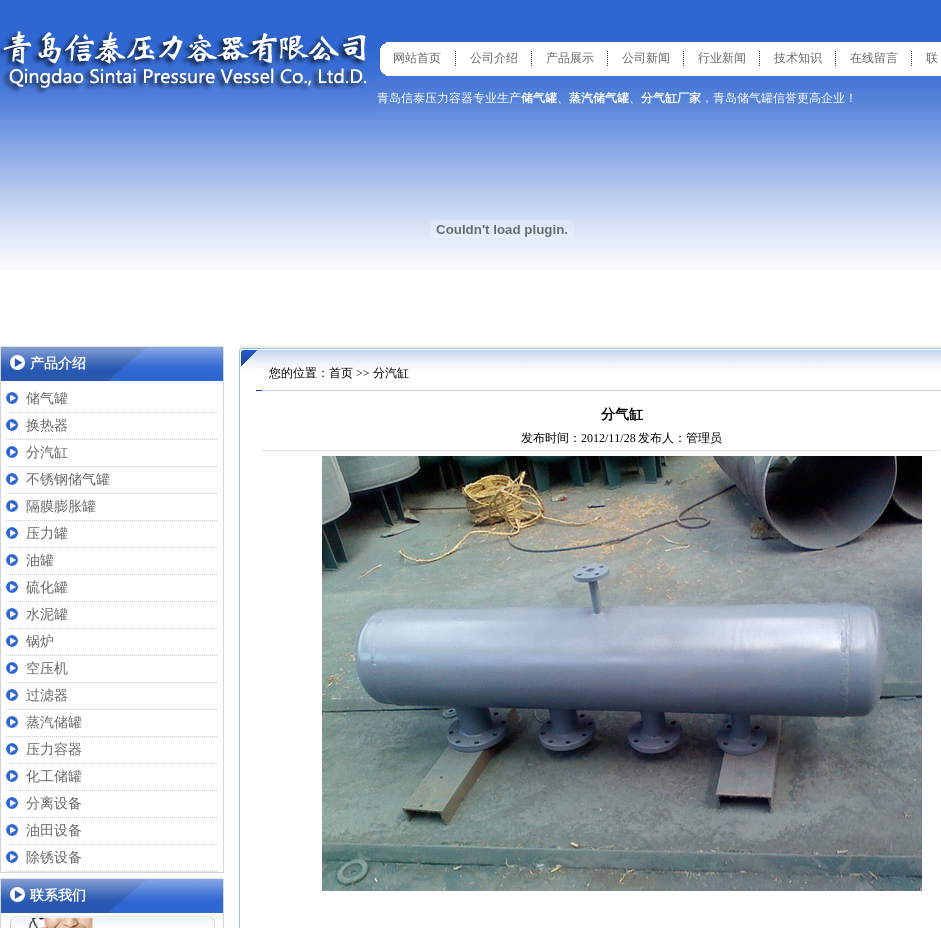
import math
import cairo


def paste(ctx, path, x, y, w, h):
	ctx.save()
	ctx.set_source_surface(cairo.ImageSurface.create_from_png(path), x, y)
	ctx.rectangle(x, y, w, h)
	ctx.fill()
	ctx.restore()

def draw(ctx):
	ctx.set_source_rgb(1, 1, 1)
	ctx.paint()
	paste(ctx, 'media/1.png', 0, 0, 941, 271)
	paste(ctx, 'media/2.png', 0, 31, 377, 84)
	paste(ctx, 'media/3.png', 380, 42, 561, 34)
	ctx.select_font_face('WenQuanYi Zen Hei Medium')
	ctx.set_font_size(12)
	ctx.set_source_rgb(0.4, 0.4, 0.4)
	for x, y, s in [
		(393, 62, '网站首页'),
		(470, 62, '公司介绍'),
		(546, 62, '产品展示'),
		(622, 62, '公司新闻'),
		(698, 62, '行业新闻'),
		(774, 62, '技术知识'),
		(850, 62, '在线留言'),
		(926, 62, '联'),
	]:
		ctx.move_to(x, y)
		ctx.show_text(s)
	ctx.set_source_rgb(1, 1, 1)
	ctx.move_to(377, 102)
	ctx.show_text('青岛信泰压力容器专业生产')
	ctx.select_font_face('WenQuanYi Zen Hei', cairo.FONT_SLANT_NORMAL, cairo.FONT_WEIGHT_BOLD)
	ctx.move_to(521, 102)
	ctx.show_text('储气罐')
	ctx.select_font_face('WenQuanYi Zen Hei Medium')
	ctx.move_to(557, 102)
	ctx.show_text('、')
	ctx.select_font_face('WenQuanYi Zen Hei', cairo.FONT_SLANT_NORMAL, cairo.FONT_WEIGHT_BOLD)
	ctx.move_to(569, 102)
	ctx.show_text('蒸汽储气罐')
	ctx.select_font_face('WenQuanYi Zen Hei Medium')
	ctx.move_to(629, 102)
	ctx.show_text('、')
	ctx.select_font_face('WenQuanYi Zen Hei', cairo.FONT_SLANT_NORMAL, cairo.FONT_WEIGHT_BOLD)
	ctx.move_to(641, 102)
	ctx.show_text('分气缸厂家')
	ctx.select_font_face('WenQuanYi Zen Hei Medium')
	ctx.move_to(701, 102)
	ctx.show_text('，青岛储气罐信誉更高企业！')
	paste(ctx, 'media/4.png', 430, 220, 144, 18)
	paste(ctx, 'media/5.png', 0, 346, 224, 35)
	ctx.select_font_face('WenQuanYi Zen Hei', cairo.FONT_SLANT_NORMAL, cairo.FONT_WEIGHT_BOLD)
	ctx.set_font_size(14)
	ctx.move_to(30, 368)
	ctx.show_text('产品介绍')
	ctx.set_source_rgb(0.831, 0.831, 0.831)
	ctx.rectangle(223, 381, 1, 492)
	ctx.rectangle(0, 872, 224, 1)
	ctx.rectangle(0, 381, 1, 492)
	ctx.fill()
	paste(ctx, 'media/6.png', 6, 392, 12, 12)
	ctx.new_path()
	ctx.move_to(6, 412.5)
	ctx.line_to(218, 412.5)
	ctx.set_source_rgb(0.8, 0.8, 0.8)
	ctx.set_line_width(1)
	ctx.set_dash([1, 1])
	ctx.stroke()
	ctx.select_font_face('WenQuanYi Zen Hei Medium')
	ctx.set_source_rgb(0.4, 0.4, 0.4)
	ctx.move_to(26, 403)
	ctx.show_text('储气罐')
	paste(ctx, 'media/6.png', 6, 419, 12, 12)
	ctx.new_path()
	ctx.move_to(6, 439.5)
	ctx.line_to(218, 439.5)
	ctx.set_source_rgb(0.8, 0.8, 0.8)
	ctx.stroke()
	ctx.set_source_rgb(0.4, 0.4, 0.4)
	ctx.move_to(26, 430)
	ctx.show_text('换热器')
	paste(ctx, 'media/6.png', 6, 446, 12, 12)
	ctx.new_path()
	ctx.move_to(6, 466.5)
	ctx.line_to(218, 466.5)
	ctx.set_source_rgb(0.8, 0.8, 0.8)
	ctx.stroke()
	ctx.set_source_rgb(0.4, 0.4, 0.4)
	ctx.move_to(26, 457)
	ctx.show_text('分汽缸')
	paste(ctx, 'media/6.png', 6, 473, 12, 12)
	ctx.new_path()
	ctx.move_to(6, 493.5)
	ctx.line_to(218, 493.5)
	ctx.set_source_rgb(0.8, 0.8, 0.8)
	ctx.stroke()
	ctx.set_source_rgb(0.4, 0.4, 0.4)
	ctx.move_to(26, 484)
	ctx.show_text('不锈钢储气罐')
	paste(ctx, 'media/6.png', 6, 500, 12, 12)
	ctx.new_path()
	ctx.move_to(6, 520.5)
	ctx.line_to(218, 520.5)
	ctx.set_source_rgb(0.8, 0.8, 0.8)
	ctx.stroke()
	ctx.set_source_rgb(0.4, 0.4, 0.4)
	ctx.move_to(26, 511)
	ctx.show_text('隔膜膨胀罐')
	paste(ctx, 'media/6.png', 6, 527, 12, 12)
	ctx.new_path()
	ctx.move_to(6, 547.5)
	ctx.line_to(218, 547.5)
	ctx.set_source_rgb(0.8, 0.8, 0.8)
	ctx.stroke()
	ctx.set_source_rgb(0.4, 0.4, 0.4)
	ctx.move_to(26, 538)
	ctx.show_text('压力罐')
	paste(ctx, 'media/6.png', 6, 554, 12, 12)
	ctx.new_path()
	ctx.move_to(6, 574.5)
	ctx.line_to(218, 574.5)
	ctx.set_source_rgb(0.8, 0.8, 0.8)
	ctx.stroke()
	ctx.set_source_rgb(0.4, 0.4, 0.4)
	ctx.move_to(26, 565)
	ctx.show_text('油罐')
	paste(ctx, 'media/6.png', 6, 581, 12, 12)
	ctx.new_path()
	ctx.move_to(6, 601.5)
	ctx.line_to(218, 601.5)
	ctx.set_source_rgb(0.8, 0.8, 0.8)
	ctx.stroke()
	ctx.set_source_rgb(0.4, 0.4, 0.4)
	ctx.move_to(26, 592)
	ctx.show_text('硫化罐')
	paste(ctx, 'media/6.png', 6, 608, 12, 12)
	ctx.new_path()
	ctx.move_to(6, 628.5)
	ctx.line_to(218, 628.5)
	ctx.set_source_rgb(0.8, 0.8, 0.8)
	ctx.stroke()
	ctx.set_source_rgb(0.4, 0.4, 0.4)
	ctx.move_to(26, 619)
	ctx.show_text('水泥罐')
	paste(ctx, 'media/6.png', 6, 635, 12, 12)
	ctx.new_path()
	ctx.move_to(6, 655.5)
	ctx.line_to(218, 655.5)
	ctx.set_source_rgb(0.8, 0.8, 0.8)
	ctx.stroke()
	ctx.set_source_rgb(0.4, 0.4, 0.4)
	ctx.move_to(26, 646)
	ctx.show_text('锅炉')
	paste(ctx, 'media/6.png', 6, 662, 12, 12)
	ctx.new_path()
	ctx.move_to(6, 682.5)
	ctx.line_to(218, 682.5)
	ctx.set_source_rgb(0.8, 0.8, 0.8)
	ctx.stroke()
	ctx.set_source_rgb(0.4, 0.4, 0.4)
	ctx.move_to(26, 673)
	ctx.show_text('空压机')
	paste(ctx, 'media/6.png', 6, 689, 12, 12)
	ctx.new_path()
	ctx.move_to(6, 709.5)
	ctx.line_to(218, 709.5)
	ctx.set_source_rgb(0.8, 0.8, 0.8)
	ctx.stroke()
	ctx.set_source_rgb(0.4, 0.4, 0.4)
	ctx.move_to(26, 700)
	ctx.show_text('过滤器')
	paste(ctx, 'media/6.png', 6, 716, 12, 12)
	ctx.new_path()
	ctx.move_to(6, 736.5)
	ctx.line_to(218, 736.5)
	ctx.set_source_rgb(0.8, 0.8, 0.8)
	ctx.stroke()
	ctx.set_source_rgb(0.4, 0.4, 0.4)
	ctx.move_to(26, 727)
	ctx.show_text('蒸汽储罐')
	paste(ctx, 'media/6.png', 6, 743, 12, 12)
	ctx.new_path()
	ctx.move_to(6, 763.5)
	ctx.line_to(218, 763.5)
	ctx.set_source_rgb(0.8, 0.8, 0.8)
	ctx.stroke()
	ctx.set_source_rgb(0.4, 0.4, 0.4)
	ctx.move_to(26, 754)
	ctx.show_text('压力容器')
	paste(ctx, 'media/6.png', 6, 770, 12, 12)
	ctx.new_path()
	ctx.move_to(6, 790.5)
	ctx.line_to(218, 790.5)
	ctx.set_source_rgb(0.8, 0.8, 0.8)
	ctx.stroke()
	ctx.set_source_rgb(0.4, 0.4, 0.4)
	ctx.move_to(26, 781)
	ctx.show_text('化工储罐')
	paste(ctx, 'media/6.png', 6, 797, 12, 12)
	ctx.new_path()
	ctx.move_to(6, 817.5)
	ctx.line_to(218, 817.5)
	ctx.set_source_rgb(0.8, 0.8, 0.8)
	ctx.stroke()
	ctx.set_source_rgb(0.4, 0.4, 0.4)
	ctx.move_to(26, 808)
	ctx.show_text('分离设备')
	paste(ctx, 'media/6.png', 6, 824, 12, 12)
	ctx.new_path()
	ctx.move_to(6, 844.5)
	ctx.line_to(218, 844.5)
	ctx.set_source_rgb(0.8, 0.8, 0.8)
	ctx.stroke()
	ctx.set_source_rgb(0.4, 0.4, 0.4)
	ctx.move_to(26, 835)
	ctx.show_text('油田设备')
	paste(ctx, 'media/6.png', 6, 851, 12, 12)
	ctx.new_path()
	ctx.move_to(6, 871.5)
	ctx.line_to(218, 871.5)
	ctx.set_source_rgb(0.8, 0.8, 0.8)
	ctx.stroke()
	ctx.set_source_rgb(0.4, 0.4, 0.4)
	ctx.move_to(26, 862)
	ctx.show_text('除锈设备')
	paste(ctx, 'media/5.png', 0, 878, 224, 35)
	ctx.select_font_face('WenQuanYi Zen Hei', cairo.FONT_SLANT_NORMAL, cairo.FONT_WEIGHT_BOLD)
	ctx.set_source_rgb(1, 1, 1)
	ctx.move_to(30, 900)
	ctx.show_text('联系我们')
	ctx.set_source_rgb(0.831, 0.831, 0.831)
	ctx.rectangle(223, 913, 1, 15)
	ctx.fill()
	ctx.rectangle(0, 913, 1, 15)
	ctx.fill()
	paste(ctx, 'media/7.png', 10, 916, 205, 12)
	paste(ctx, 'media/8.png', 239, 346, 702, 45)
	ctx.select_font_face('WenQuanYi Zen Hei Medium')
	ctx.set_font_size(12)
	ctx.set_source_rgb(0, 0, 0)
	ctx.move_to(269, 377)
	ctx.show_text('您的位置：首页')
	ctx.select_font_face('Liberation Serif')
	ctx.move_to(356, 377)
	ctx.show_text('>>')
	ctx.select_font_face('WenQuanYi Zen Hei Medium')
	ctx.move_to(373, 377)
	ctx.show_text('分汽缸')
	ctx.set_source_rgb(0.6, 0.757, 0.855)
	ctx.rectangle(239, 391, 1, 537)
	ctx.fill()
	ctx.select_font_face('WenQuanYi Zen Hei', cairo.FONT_SLANT_NORMAL, cairo.FONT_WEIGHT_BOLD)
	ctx.set_font_size(14)
	ctx.set_source_rgb(0, 0, 0)
	ctx.move_to(601, 419)
	ctx.show_text('分气缸')
	ctx.new_path()
	ctx.move_to(263, 450.5)
	ctx.line_to(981, 450.5)
	ctx.set_source_rgb(0.8, 0.8, 0.8)
	ctx.stroke()
	ctx.select_font_face('WenQuanYi Zen Hei Medium')
	ctx.set_font_size(12)
	ctx.set_source_rgb(0, 0, 0)
	ctx.move_to(521, 442)
	ctx.show_text('发布时间：')
	ctx.select_font_face('Liberation Serif')
	ctx.move_to(581, 442)
	ctx.show_text('2012/11/28')
	ctx.select_font_face('WenQuanYi Zen Hei Medium')
	ctx.move_to(638, 442)
	ctx.show_text('发布人：管理员')
	paste(ctx, 'media/9.png', 322, 456, 600, 435)


surface = cairo.ImageSurface(cairo.FORMAT_RGB24, 941, 928)
ctx = cairo.Context(surface)
options = cairo.FontOptions()
options.set_hint_metrics(cairo.HINT_METRICS_OFF)
options.set_hint_style(cairo.HINT_STYLE_NONE)
ctx.set_font_options(options)
ctx.set_miter_limit(4)
draw(ctx)
surface.write_to_png('image.png')
